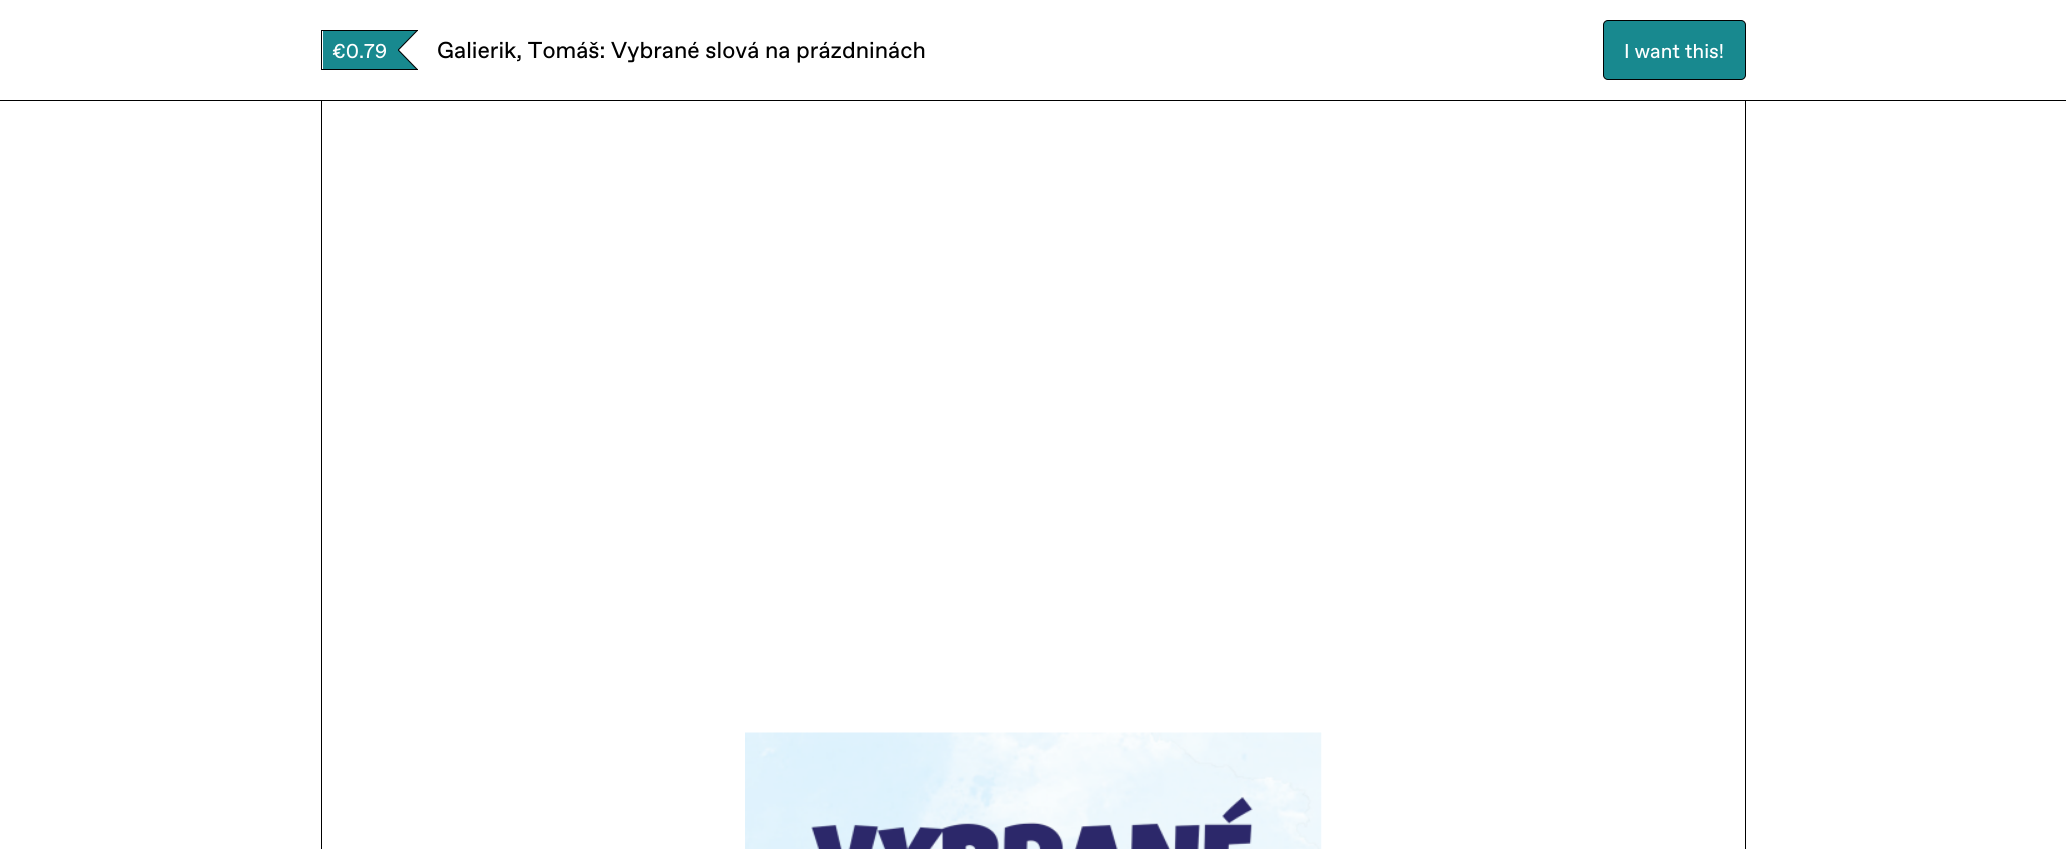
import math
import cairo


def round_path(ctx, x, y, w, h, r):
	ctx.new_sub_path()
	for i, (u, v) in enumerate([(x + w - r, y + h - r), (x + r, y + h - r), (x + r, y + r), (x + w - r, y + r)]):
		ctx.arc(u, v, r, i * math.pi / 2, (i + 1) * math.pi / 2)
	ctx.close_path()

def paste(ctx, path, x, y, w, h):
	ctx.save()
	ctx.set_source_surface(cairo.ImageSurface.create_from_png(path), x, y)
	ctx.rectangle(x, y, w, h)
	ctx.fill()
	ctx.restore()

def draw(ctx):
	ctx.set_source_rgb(1, 1, 1)
	ctx.paint()
	ctx.rectangle(321.5, 80.5, 1424, 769)
	ctx.set_source_rgb(0, 0, 0)
	ctx.set_line_width(1)
	ctx.stroke()
	ctx.rectangle(0, 100, 2066, 1)
	ctx.fill()
	ctx.set_source_rgb(1, 1, 1)
	ctx.rectangle(321, 80, 1425, 20)
	ctx.fill()
	ctx.set_source_rgb(0, 0, 0)
	ctx.rectangle(321, 30, 97, 1)
	ctx.rectangle(321, 69, 97, 1)
	ctx.rectangle(321, 30, 1, 40)
	ctx.fill()
	ctx.set_source_rgb(0.094, 0.537, 0.561)
	ctx.rectangle(323, 31, 75, 38)
	ctx.fill()
	ctx.set_source_rgb(0, 0, 0)
	ctx.new_path()
	ctx.move_to(397.5, 31)
	ctx.line_to(417.5, 31)
	ctx.line_to(399, 50)
	ctx.close_path()
	ctx.move_to(417.5, 69)
	ctx.line_to(397.5, 69)
	ctx.line_to(399, 50)
	ctx.close_path()
	ctx.fill()
	ctx.rectangle(398, 48, 1, 4)
	ctx.fill()
	ctx.set_source_rgb(0.094, 0.537, 0.561)
	ctx.new_path()
	ctx.move_to(396, 31)
	ctx.line_to(416, 31)
	ctx.line_to(397.5, 50)
	ctx.close_path()
	ctx.move_to(416, 69)
	ctx.line_to(396, 69)
	ctx.line_to(397.5, 50)
	ctx.close_path()
	ctx.fill()
	ctx.select_font_face('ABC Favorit')
	ctx.set_font_size(20)
	ctx.set_source_rgb(1, 1, 1)
	ctx.move_to(332, 58)
	ctx.show_text('€0.79')
	ctx.set_font_size(23)
	ctx.set_source_rgb(0, 0, 0)
	ctx.move_to(437, 58)
	ctx.show_text('Galierik, Tomáš: Vybrané slová na prázdninách')
	ctx.set_source_rgb(0.094, 0.537, 0.561)
	round_path(ctx, 1603.5, 20.5, 142, 59, 4.5)
	ctx.fill_preserve()
	ctx.set_source_rgb(0, 0, 0)
	ctx.stroke()
	ctx.set_font_size(20)
	ctx.set_source_rgb(1, 1, 1)
	ctx.move_to(1624, 58)
	ctx.show_text('I want this!')
	paste(ctx, 'media/1.png', 745, 732, 577, 117)


surface = cairo.ImageSurface(cairo.FORMAT_RGB24, 2066, 849)
ctx = cairo.Context(surface)
options = cairo.FontOptions()
options.set_hint_metrics(cairo.HINT_METRICS_OFF)
options.set_hint_style(cairo.HINT_STYLE_NONE)
ctx.set_font_options(options)
ctx.set_miter_limit(4)
draw(ctx)
surface.write_to_png('image.png')
